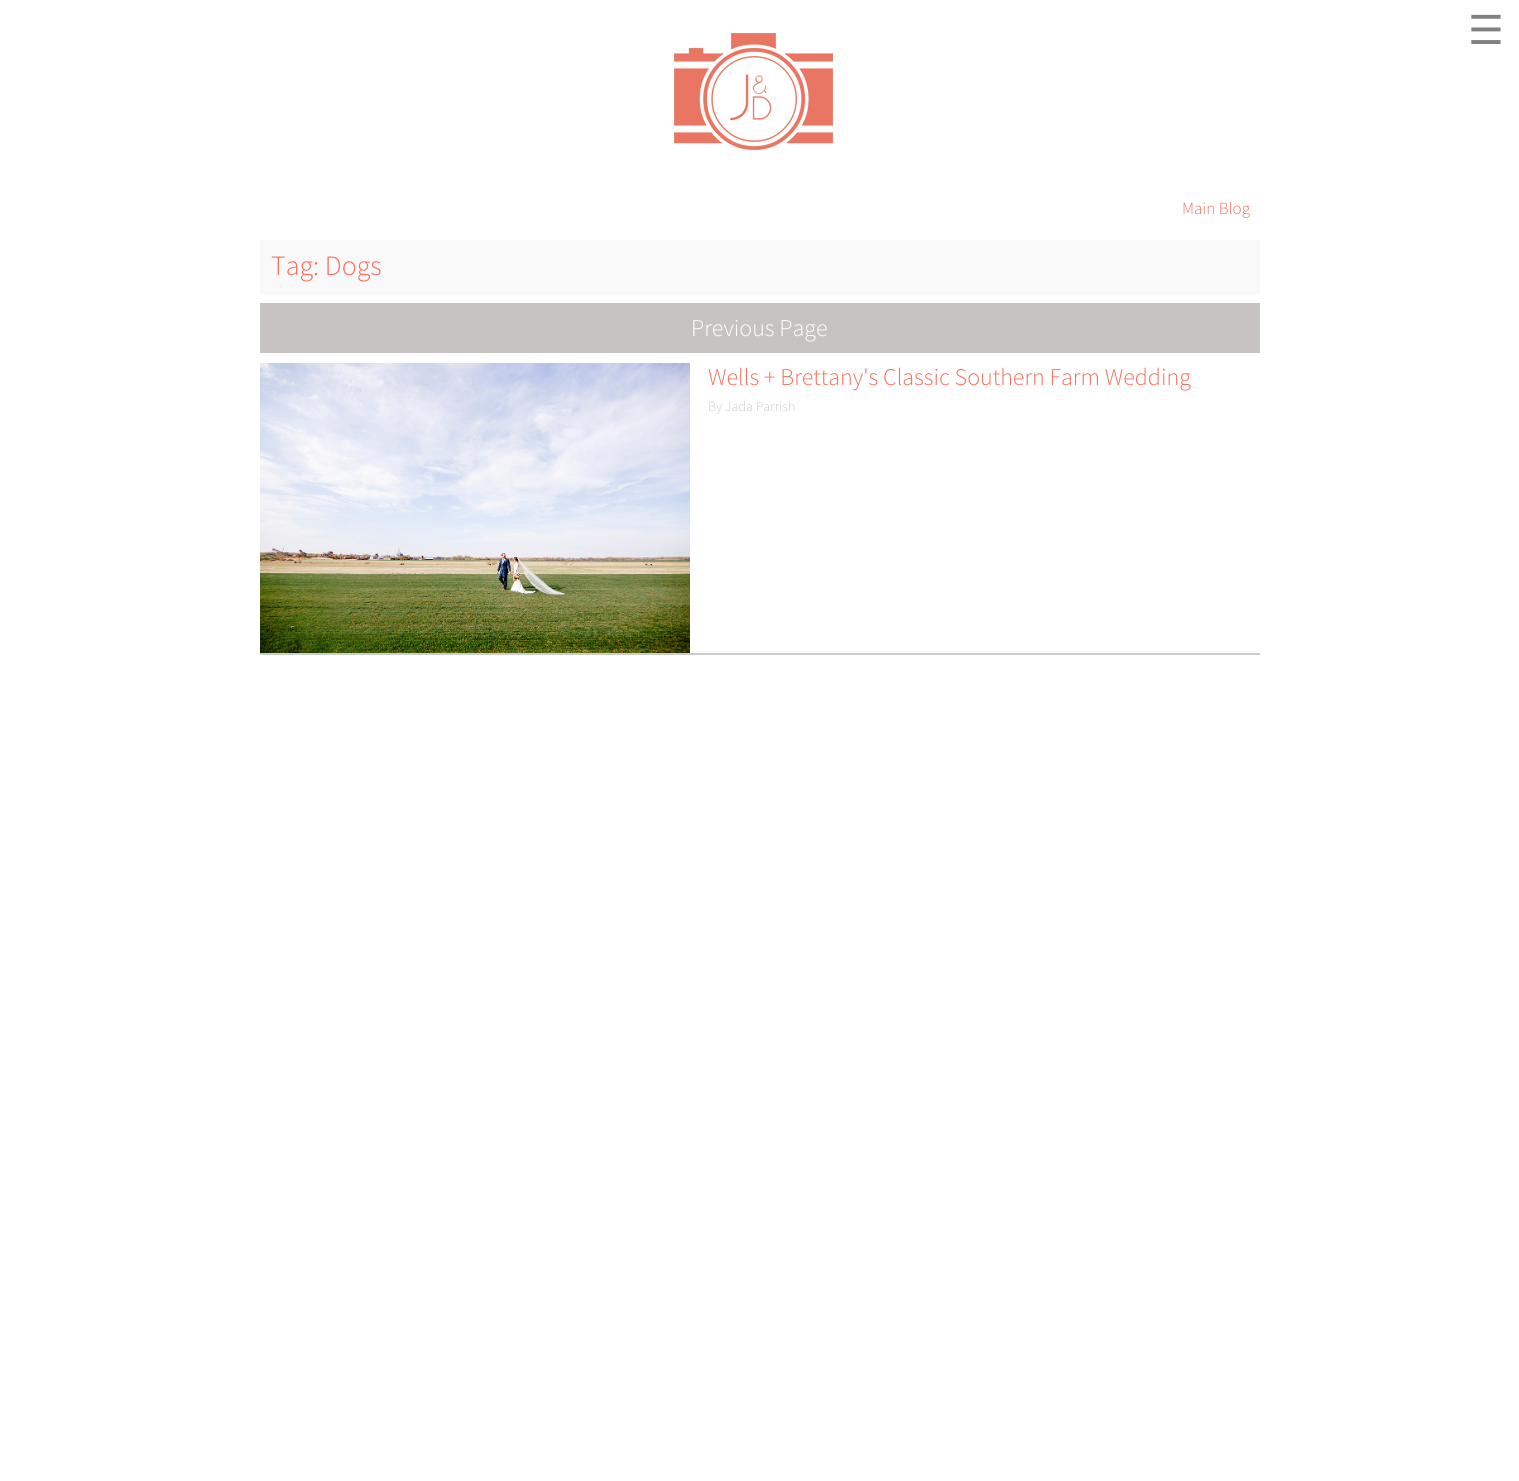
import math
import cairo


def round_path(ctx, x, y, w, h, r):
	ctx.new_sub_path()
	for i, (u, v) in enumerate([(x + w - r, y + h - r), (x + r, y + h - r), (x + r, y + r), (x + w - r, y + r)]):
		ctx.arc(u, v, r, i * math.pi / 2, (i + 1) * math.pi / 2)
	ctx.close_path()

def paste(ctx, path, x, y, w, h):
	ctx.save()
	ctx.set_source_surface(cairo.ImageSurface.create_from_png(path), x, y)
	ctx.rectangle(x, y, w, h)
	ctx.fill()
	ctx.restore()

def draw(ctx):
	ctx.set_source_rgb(1, 1, 1)
	ctx.paint()
	ctx.select_font_face('DejaVu Sans')
	ctx.set_font_size(40)
	ctx.set_source_rgb(0.502, 0.502, 0.502)
	ctx.move_to(1468, 44)
	ctx.show_text('☰')
	paste(ctx, 'media/1.png', 674, 33, 159, 117)
	ctx.select_font_face('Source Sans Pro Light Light')
	ctx.set_font_size(17)
	ctx.set_source_rgb(0.976, 0.427, 0.357)
	ctx.move_to(1182, 214)
	ctx.show_text('Main Blog')
	ctx.set_source_rgb(0.976, 0.976, 0.976)
	round_path(ctx, 260, 240, 1000, 55, 2)
	ctx.fill()
	ctx.set_font_size(28)
	ctx.set_source_rgb(0.976, 0.427, 0.357)
	ctx.move_to(271, 275)
	ctx.show_text('Tag: Dogs')
	ctx.set_source_rgb(0.784, 0.765, 0.765)
	ctx.rectangle(260, 303, 1000, 50)
	ctx.fill()
	ctx.set_font_size(24)
	ctx.set_source_rgb(1, 1, 1)
	ctx.move_to(691, 336)
	ctx.show_text('Previous Page')
	ctx.set_source_rgb(0.8, 0.8, 0.8)
	ctx.rectangle(260, 653, 1000, 2)
	ctx.fill()
	paste(ctx, 'media/2.png', 260, 363, 430, 290)
	ctx.set_source_rgb(0.976, 0.427, 0.357)
	ctx.move_to(708, 385)
	ctx.show_text('Wells + Brettany\'s Classic Southern Farm Wedding')
	ctx.set_font_size(14)
	ctx.set_source_rgb(0.8, 0.8, 0.8)
	ctx.move_to(708, 411)
	ctx.show_text('By Jada Parrish')


surface = cairo.ImageSurface(cairo.FORMAT_RGB24, 1519, 1481)
ctx = cairo.Context(surface)
options = cairo.FontOptions()
options.set_hint_metrics(cairo.HINT_METRICS_OFF)
options.set_hint_style(cairo.HINT_STYLE_NONE)
ctx.set_font_options(options)
ctx.set_miter_limit(4)
draw(ctx)
surface.write_to_png('image.png')
